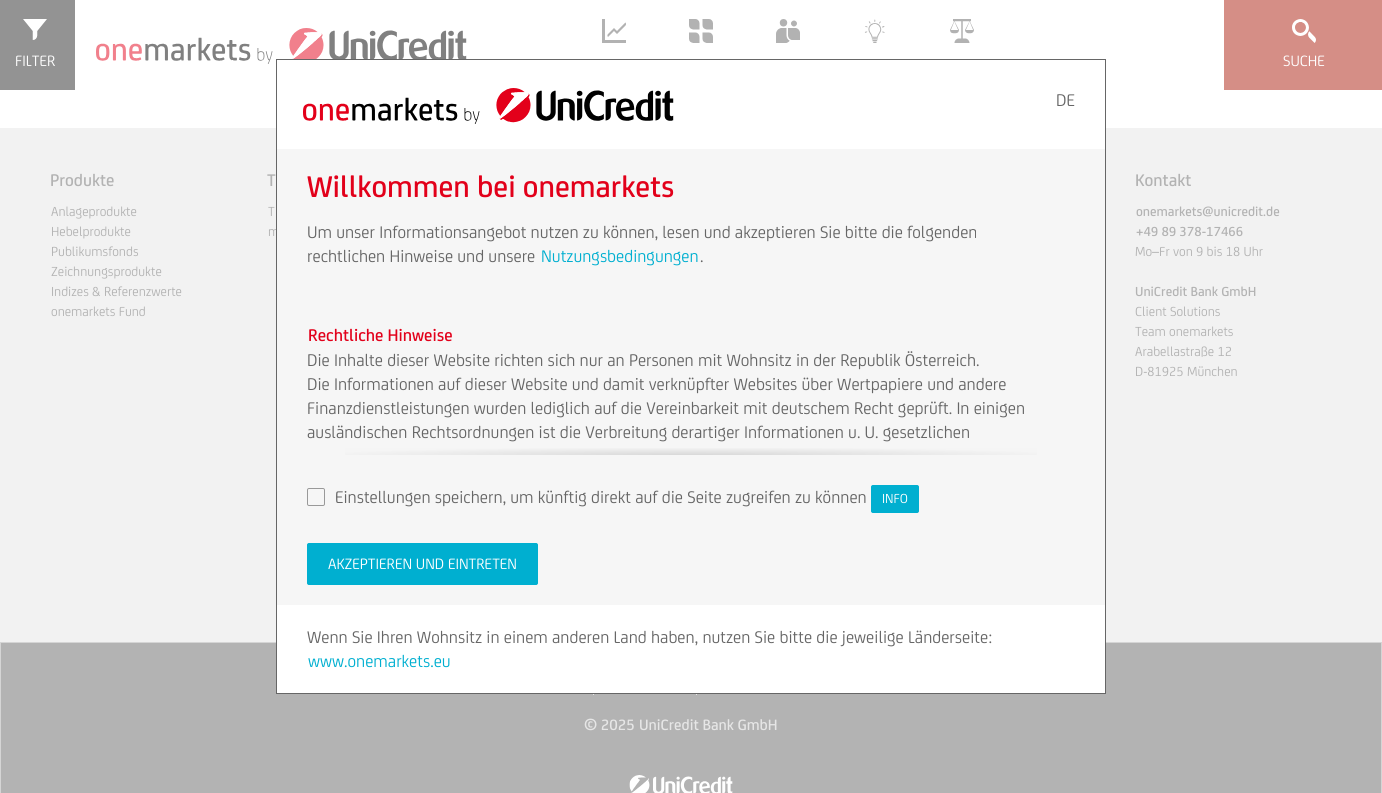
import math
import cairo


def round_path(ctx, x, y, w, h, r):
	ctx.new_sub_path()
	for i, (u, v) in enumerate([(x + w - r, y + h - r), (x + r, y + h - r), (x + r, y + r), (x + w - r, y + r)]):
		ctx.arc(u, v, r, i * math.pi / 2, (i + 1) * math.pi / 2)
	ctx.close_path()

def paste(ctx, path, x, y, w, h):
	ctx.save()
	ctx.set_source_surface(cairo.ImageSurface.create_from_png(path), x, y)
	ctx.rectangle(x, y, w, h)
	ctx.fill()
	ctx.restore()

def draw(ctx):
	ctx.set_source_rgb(1, 1, 1)
	ctx.paint()
	ctx.set_source_rgb(0.576, 0.576, 0.576)
	ctx.rectangle(0, 0, 75, 90)
	ctx.fill()
	paste(ctx, 'media/1.png', 23, 19, 24, 21)
	ctx.select_font_face('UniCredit')
	ctx.set_font_size(16)
	ctx.set_source_rgb(1, 1, 1)
	ctx.move_to(15, 66)
	ctx.show_text('FILTER')
	paste(ctx, 'media/2.png', 96, 28, 371, 36)
	paste(ctx, 'media/3.png', 602, 19, 24, 24)
	paste(ctx, 'media/4.png', 689, 19, 24, 24)
	paste(ctx, 'media/5.png', 776, 19, 24, 24)
	paste(ctx, 'media/6.png', 864, 19, 21, 24)
	paste(ctx, 'media/7.png', 950, 19, 24, 24)
	ctx.set_source_rgb(0.835, 0.557, 0.525)
	ctx.rectangle(1224, 0, 158, 90)
	ctx.fill()
	paste(ctx, 'media/8.png', 1292, 19, 24, 24)
	ctx.set_source_rgb(1, 1, 1)
	ctx.move_to(1283, 66)
	ctx.show_text('SUCHE')
	ctx.set_source_rgb(0.949, 0.949, 0.949)
	ctx.rectangle(0, 128, 1382, 514)
	ctx.fill()
	ctx.select_font_face('UniCredit Medium')
	ctx.set_font_size(18)
	ctx.set_source_rgb(0.702, 0.702, 0.702)
	ctx.move_to(50, 186)
	ctx.show_text('Produkte')
	ctx.select_font_face('UniCredit')
	ctx.set_font_size(14)
	for x, y, s in [
		(51, 216, 'Anlageprodukte'),
		(51, 236, 'Hebelprodukte'),
		(51, 256, 'Publikumsfonds'),
		(51, 276, 'Zeichnungsprodukte'),
		(51, 296, 'Indizes & Referenzwerte'),
		(51, 316, 'onemarkets Fund'),
	]:
		ctx.move_to(x, y)
		ctx.show_text(s)
	ctx.select_font_face('UniCredit Medium')
	ctx.set_font_size(18)
	ctx.move_to(267, 186)
	ctx.show_text('T')
	ctx.select_font_face('UniCredit')
	ctx.set_font_size(14)
	ctx.move_to(268, 216)
	ctx.show_text('T')
	ctx.move_to(268, 236)
	ctx.show_text('m')
	ctx.select_font_face('UniCredit Medium')
	ctx.set_font_size(18)
	ctx.move_to(1135, 186)
	ctx.show_text('Kontakt')
	ctx.set_font_size(14)
	ctx.move_to(1136, 216)
	ctx.show_text('onemarkets@unicredit.de')
	ctx.move_to(1136, 236)
	ctx.show_text('+49 89 378-17466')
	ctx.select_font_face('UniCredit')
	ctx.move_to(1135, 256)
	ctx.show_text('Mo–Fr von 9 bis 18 Uhr')
	ctx.select_font_face('UniCredit Medium')
	ctx.move_to(1135, 296)
	ctx.show_text('UniCredit Bank GmbH')
	ctx.select_font_face('UniCredit')
	for x, y, s in [
		(1135, 316, 'Client Solutions'),
		(1135, 336, 'Team onemarkets'),
		(1135, 356, 'Arabellastraße 12'),
		(1135, 376, 'D-81925 München'),
	]:
		ctx.move_to(x, y)
		ctx.show_text(s)
	ctx.rectangle(0.5, 642.5, 1381, 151)
	ctx.fill_preserve()
	ctx.set_source_rgb(0.835, 0.835, 0.835)
	ctx.set_line_width(1)
	ctx.stroke()
	ctx.set_source_rgb(0.902, 0.902, 0.902)
	ctx.rectangle(593, 694, 1, 1)
	ctx.fill()
	ctx.rectangle(696, 694, 1, 1)
	ctx.fill()
	ctx.select_font_face('UniCredit Medium')
	ctx.set_font_size(16)
	ctx.move_to(584, 730)
	ctx.show_text('© 2025')
	ctx.move_to(639, 730)
	ctx.show_text('UniCredit Bank GmbH')
	paste(ctx, 'media/9.png', 629, 775, 104, 18)
	ctx.set_source_rgb(0.961, 0.961, 0.961)
	ctx.rectangle(277, 149, 828, 456)
	ctx.fill()
	ctx.rectangle(276.5, 59.5, 829, 634)
	ctx.set_source_rgb(0.4, 0.4, 0.4)
	ctx.stroke()
	ctx.set_source_rgb(1, 1, 1)
	ctx.rectangle(277, 60, 828, 89)
	ctx.fill()
	paste(ctx, 'media/10.png', 303, 88, 371, 36)
	ctx.select_font_face('UniCredit')
	ctx.set_font_size(18)
	ctx.set_source_rgb(0.4, 0.4, 0.4)
	ctx.move_to(1056, 106)
	ctx.show_text('DE')
	ctx.select_font_face('UniCredit Medium')
	ctx.set_font_size(32)
	ctx.set_source_rgb(0.886, 0, 0.102)
	ctx.move_to(307, 197)
	ctx.show_text('Willkommen bei onemarkets')
	ctx.select_font_face('UniCredit')
	ctx.set_font_size(18)
	ctx.set_source_rgb(0.4, 0.4, 0.4)
	ctx.move_to(307, 238)
	ctx.show_text('Um unser Informationsangebot nutzen zu können, lesen und akzeptieren Sie bitte die folgenden')
	ctx.move_to(307, 262)
	ctx.show_text('rechtlichen Hinweise und unsere')
	ctx.set_source_rgb(0, 0.686, 0.816)
	ctx.move_to(541, 262)
	ctx.show_text('Nutzungsbedingungen')
	ctx.set_source_rgb(0.4, 0.4, 0.4)
	ctx.move_to(700, 262)
	ctx.show_text('.')
	ctx.select_font_face('UniCredit Medium')
	ctx.set_source_rgb(0.886, 0, 0.102)
	ctx.move_to(308, 341)
	ctx.show_text('Rechtliche Hinweise')
	ctx.select_font_face('UniCredit')
	ctx.set_source_rgb(0.4, 0.4, 0.4)
	for x, y, s in [
		(307, 366, 'Die Inhalte dieser Website richten sich nur an Personen mit Wohnsitz in der Republik Österreich.'),
		(307, 390, 'Die Informationen auf dieser Website und damit verknüpfter Websites über Wertpapiere und andere'),
		(307, 414, 'Finanzdienstleistungen wurden lediglich auf die Vereinbarkeit mit deutschem Recht geprüft. In einigen'),
		(307, 438, 'ausländischen Rechtsordnungen ist die Verbreitung derartiger Informationen u. U. gesetzlichen'),
	]:
		ctx.move_to(x, y)
		ctx.show_text(s)
	gradient = cairo.RadialGradient(0, 0, 0, 0, 0, 1)
	gradient.set_matrix(cairo.Matrix(1 / 543, 0, 0, 1 / 11, -1 * 691 / 543, -1 * 455 / 11))
	gradient.add_color_stop_rgba(0, 0.847, 0.847, 0.847, 1)
	gradient.add_color_stop_rgba(0.7, 0.961, 0.961, 0.961, 1)
	ctx.set_source(gradient)
	ctx.rectangle(345, 448, 692, 7)
	ctx.fill()
	round_path(ctx, 307.5, 488.5, 17, 17, 1.5)
	ctx.set_source_rgb(0.6, 0.6, 0.6)
	ctx.stroke()
	ctx.set_source_rgb(0.4, 0.4, 0.4)
	ctx.move_to(335, 503)
	ctx.show_text('Einstellungen speichern, um künftig direkt auf die Seite zugreifen zu können')
	ctx.set_source_rgb(0, 0.686, 0.816)
	round_path(ctx, 871.5, 485.5, 47, 27, 1.5)
	ctx.fill_preserve()
	ctx.stroke()
	ctx.set_font_size(14)
	ctx.set_source_rgb(1, 1, 1)
	ctx.move_to(882, 503)
	ctx.show_text('INFO')
	ctx.set_source_rgb(0, 0.686, 0.816)
	round_path(ctx, 307.5, 543.5, 230, 41, 1.5)
	ctx.fill_preserve()
	ctx.stroke()
	ctx.set_font_size(16)
	ctx.set_source_rgb(1, 1, 1)
	ctx.move_to(328, 569)
	ctx.show_text('AKZEPTIEREN UND EINTRETEN')
	ctx.rectangle(277, 605, 828, 88)
	ctx.fill()
	ctx.set_font_size(18)
	ctx.set_source_rgb(0.4, 0.4, 0.4)
	ctx.move_to(307, 643)
	ctx.show_text('Wenn Sie Ihren Wohnsitz in einem anderen Land haben, nutzen Sie bitte die jeweilige Länderseite:')
	ctx.set_source_rgb(0, 0.686, 0.816)
	ctx.move_to(308, 667)
	ctx.show_text('www.onemarkets.eu')


surface = cairo.ImageSurface(cairo.FORMAT_RGB24, 1382, 793)
ctx = cairo.Context(surface)
options = cairo.FontOptions()
options.set_hint_metrics(cairo.HINT_METRICS_OFF)
options.set_hint_style(cairo.HINT_STYLE_NONE)
ctx.set_font_options(options)
ctx.set_miter_limit(4)
draw(ctx)
surface.write_to_png('image.png')
